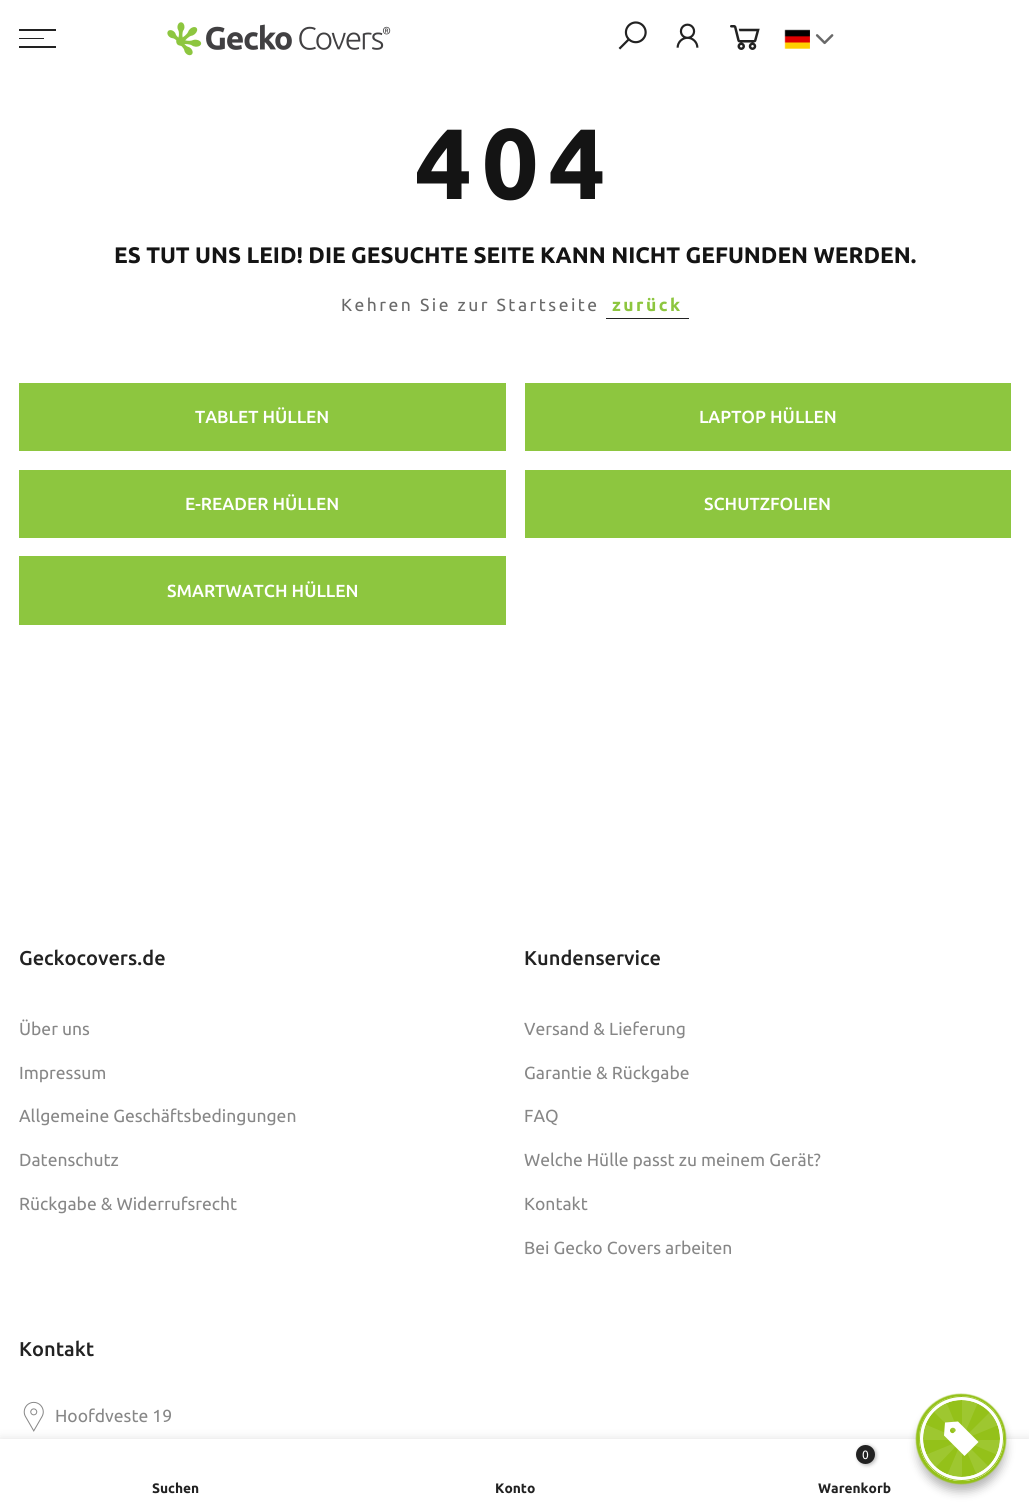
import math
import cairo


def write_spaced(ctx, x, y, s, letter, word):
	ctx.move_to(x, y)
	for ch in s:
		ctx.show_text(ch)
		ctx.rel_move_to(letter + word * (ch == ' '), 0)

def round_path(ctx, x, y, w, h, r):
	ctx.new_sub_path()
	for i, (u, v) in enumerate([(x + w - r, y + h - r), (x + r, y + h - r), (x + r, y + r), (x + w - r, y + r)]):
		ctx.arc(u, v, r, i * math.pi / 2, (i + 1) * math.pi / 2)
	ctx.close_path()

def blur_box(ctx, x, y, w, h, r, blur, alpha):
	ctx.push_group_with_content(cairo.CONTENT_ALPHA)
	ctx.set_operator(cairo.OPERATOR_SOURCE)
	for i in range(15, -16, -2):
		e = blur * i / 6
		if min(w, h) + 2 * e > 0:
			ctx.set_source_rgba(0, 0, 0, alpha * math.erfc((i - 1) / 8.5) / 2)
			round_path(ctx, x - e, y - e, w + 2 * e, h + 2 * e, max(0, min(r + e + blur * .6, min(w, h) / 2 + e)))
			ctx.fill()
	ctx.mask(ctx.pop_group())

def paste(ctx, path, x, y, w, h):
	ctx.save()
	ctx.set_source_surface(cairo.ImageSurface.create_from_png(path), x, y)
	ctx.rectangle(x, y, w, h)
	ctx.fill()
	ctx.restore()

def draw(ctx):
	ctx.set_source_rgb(1, 1, 1)
	ctx.paint()
	ctx.set_source_rgb(0.133, 0.133, 0.133)
	ctx.rectangle(19, 29, 37, 2)
	ctx.rectangle(19, 38, 25, 1)
	ctx.rectangle(19, 46, 37, 2)
	ctx.fill()
	paste(ctx, 'media/1.png', 167, 22, 224, 34)
	paste(ctx, 'media/2.png', 618, 21, 29, 29)
	paste(ctx, 'media/3.png', 676, 23, 23, 25)
	paste(ctx, 'media/4.png', 730, 25, 30, 25)
	paste(ctx, 'media/5.png', 784, 29, 26, 20)
	paste(ctx, 'media/6.png', 815, 34, 19, 11)
	ctx.select_font_face('Ubuntu', cairo.FONT_SLANT_NORMAL, cairo.FONT_WEIGHT_BOLD)
	ctx.set_font_size(100)
	ctx.set_source_rgb(0.082, 0.082, 0.082)
	write_spaced(ctx, 415, 199, '404', 10, 0)
	ctx.set_font_size(22.5)
	ctx.move_to(114, 263)
	ctx.show_text('ES TUT UNS LEID! DIE GESUCHTE SEITE KANN NICHT GEFUNDEN WERDEN.')
	ctx.select_font_face('Ubuntu')
	ctx.set_font_size(17.5)
	ctx.set_source_rgb(0.412, 0.412, 0.412)
	write_spaced(ctx, 341, 311, 'Kehren Sie zur Startseite', 2.5, 0)
	ctx.select_font_face('Ubuntu', cairo.FONT_SLANT_NORMAL, cairo.FONT_WEIGHT_BOLD)
	ctx.set_source_rgb(0.553, 0.776, 0.247)
	write_spaced(ctx, 612, 311, 'zurück', 2.5, 0)
	ctx.set_source_rgb(0.133, 0.133, 0.133)
	ctx.rectangle(606, 318, 83, 1)
	ctx.fill()
	ctx.set_source_rgb(0.553, 0.776, 0.247)
	ctx.rectangle(19, 383, 487, 68)
	ctx.fill()
	ctx.select_font_face('Ubuntu Medium')
	ctx.set_source_rgb(1, 1, 1)
	ctx.move_to(195, 423)
	ctx.show_text('TABLET HÜLLEN')
	ctx.set_source_rgb(0.553, 0.776, 0.247)
	ctx.rectangle(525, 383, 486, 68)
	ctx.fill()
	ctx.set_source_rgb(1, 1, 1)
	ctx.move_to(699, 423)
	ctx.show_text('LAPTOP HÜLLEN')
	ctx.set_source_rgb(0.553, 0.776, 0.247)
	ctx.rectangle(19, 470, 487, 68)
	ctx.fill()
	ctx.set_source_rgb(1, 1, 1)
	ctx.move_to(185, 510)
	ctx.show_text('E-READER HÜLLEN')
	ctx.set_source_rgb(0.553, 0.776, 0.247)
	ctx.rectangle(525, 470, 486, 68)
	ctx.fill()
	ctx.set_source_rgb(1, 1, 1)
	ctx.move_to(704, 510)
	ctx.show_text('SCHUTZFOLIEN')
	ctx.set_source_rgb(0.553, 0.776, 0.247)
	ctx.rectangle(19, 556, 487, 69)
	ctx.fill()
	ctx.set_source_rgb(1, 1, 1)
	ctx.move_to(167, 597)
	ctx.show_text('SMARTWATCH HÜLLEN')
	ctx.set_font_size(20)
	ctx.set_source_rgb(0.133, 0.133, 0.133)
	ctx.move_to(19, 965)
	ctx.show_text('Geckocovers.de')
	ctx.select_font_face('Ubuntu')
	ctx.set_font_size(17.5)
	ctx.set_source_rgb(0.529, 0.529, 0.529)
	for x, y, s in [
		(19, 1035, 'Über uns'),
		(19, 1079, 'Impressum'),
		(19, 1122, 'Allgemeine Geschäftsbedingungen'),
		(19, 1166, 'Datenschutz'),
		(19, 1210, 'Rückgabe & Widerrufsrecht'),
	]:
		ctx.move_to(x, y)
		ctx.show_text(s)
	ctx.select_font_face('Ubuntu Medium')
	ctx.set_font_size(20)
	ctx.set_source_rgb(0.133, 0.133, 0.133)
	ctx.move_to(524, 965)
	ctx.show_text('Kundenservice')
	ctx.select_font_face('Ubuntu')
	ctx.set_font_size(17.5)
	ctx.set_source_rgb(0.529, 0.529, 0.529)
	for x, y, s in [
		(524, 1035, 'Versand & Lieferung'),
		(524, 1079, 'Garantie & Rückgabe'),
		(524, 1122, 'FAQ'),
		(524, 1166, 'Welche Hülle passt zu meinem Gerät?'),
		(524, 1210, 'Kontakt'),
		(524, 1254, 'Bei Gecko Covers arbeiten'),
	]:
		ctx.move_to(x, y)
		ctx.show_text(s)
	ctx.select_font_face('Ubuntu Medium')
	ctx.set_font_size(20)
	ctx.set_source_rgb(0.133, 0.133, 0.133)
	ctx.move_to(19, 1356)
	ctx.show_text('Kontakt')
	paste(ctx, 'media/7.png', 23, 1401, 21, 31)
	ctx.select_font_face('Ubuntu')
	ctx.set_font_size(17.5)
	ctx.set_source_rgb(0.529, 0.529, 0.529)
	ctx.move_to(55, 1422)
	ctx.show_text('Hoofdveste 19')
	ctx.set_source_rgb(0, 0, 0)
	blur_box(ctx, 0, 1439, 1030, 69, 0, 5.5, 0.12)
	ctx.set_source_rgb(1, 1, 1)
	ctx.rectangle(0, 1439, 1029, 68)
	ctx.fill()
	ctx.select_font_face('Ubuntu', cairo.FONT_SLANT_NORMAL, cairo.FONT_WEIGHT_BOLD)
	ctx.set_font_size(13.75)
	ctx.set_source_rgb(0.133, 0.133, 0.133)
	ctx.move_to(152, 1493)
	ctx.show_text('Suchen')
	ctx.move_to(495, 1493)
	ctx.show_text('Konto')
	ctx.set_source_rgb(0, 0, 0)
	blur_box(ctx, 858, 1446, 18, 19, 9, 2, 0.3)
	ctx.set_source_rgb(0.133, 0.133, 0.133)
	ctx.arc(865.5, 1454.5, 9.5, 0, 2 * math.pi)
	ctx.fill()
	ctx.select_font_face('Ubuntu')
	ctx.set_font_size(12)
	ctx.set_source_rgb(1, 1, 1)
	ctx.move_to(862, 1459)
	ctx.show_text('0')
	ctx.select_font_face('Ubuntu', cairo.FONT_SLANT_NORMAL, cairo.FONT_WEIGHT_BOLD)
	ctx.set_font_size(13.75)
	ctx.set_source_rgb(0.133, 0.133, 0.133)
	ctx.move_to(818, 1493)
	ctx.show_text('Warenkorb')
	ctx.set_source_rgb(0, 0, 0)
	blur_box(ctx, 918, 1404, 87, 87, 43.5, 5, 0.3)
	ctx.set_source_rgb(0.58, 0.757, 0.098)
	blur_box(ctx, 916, 1394, 90, 90, 45, 0.5, 1)
	ctx.set_source_rgb(0.58, 0.757, 0.098)
	round_path(ctx, 918, 1395, 87, 88, 43.5)
	ctx.fill()
	ctx.arc(961.5, 1438.5, 40.5, 0, 2 * math.pi)
	ctx.set_source_rgb(1, 1, 1)
	ctx.set_line_width(4)
	ctx.stroke()
	ctx.arc(961.5, 1438.5, 40.5, 0, 2 * math.pi)
	ctx.stroke()
	ctx.arc(961.5, 1438.5, 42, 0, 2 * math.pi)
	ctx.set_source_rgb(0.58, 0.757, 0.098)
	ctx.set_line_width(1)
	ctx.stroke()
	round_path(ctx, 918.5, 1395.5, 86, 87, 43)
	ctx.stroke()
	ctx.set_source_rgba(1, 1, 1, 0.1)
	ctx.new_path()
	ctx.move_to(922, 1423)
	ctx.curve_to(920, 1428, 919, 1434, 919, 1440)
	ctx.line_to(962, 1440)
	ctx.line_to(923, 1456)
	ctx.curve_to(925, 1461, 929, 1466, 933, 1470)
	ctx.line_to(962, 1440)
	ctx.line_to(946, 1478)
	ctx.curve_to(951, 1480, 957, 1481, 962, 1481)
	ctx.line_to(962, 1440)
	ctx.line_to(978, 1478)
	ctx.curve_to(983, 1476, 987, 1473, 991, 1469)
	ctx.line_to(962, 1440)
	ctx.line_to(1000, 1456)
	ctx.curve_to(1002, 1451, 1004, 1446, 1004, 1440)
	ctx.line_to(962, 1440)
	ctx.line_to(1001, 1424)
	ctx.curve_to(999, 1419, 996, 1414, 993, 1409)
	ctx.line_to(962, 1440)
	ctx.line_to(979, 1400)
	ctx.curve_to(974, 1397, 968, 1396, 962, 1396)
	ctx.line_to(962, 1440)
	ctx.line_to(945, 1399)
	ctx.curve_to(940, 1401, 935, 1405, 931, 1409)
	ctx.line_to(962, 1440)
	ctx.close_path()
	ctx.fill()
	ctx.set_source_rgb(1, 1, 1)
	ctx.new_path()
	ctx.move_to(958, 1421.5)
	ctx.line_to(945, 1422.5)
	ctx.line_to(944, 1435.5)
	ctx.line_to(964.5, 1456)
	ctx.line_to(978.5, 1442)
	ctx.close_path()
	ctx.move_to(954.5, 1432)
	ctx.curve_to(952.5, 1435, 948.5, 1431.5, 950.5, 1429)
	ctx.curve_to(953, 1425.5, 958, 1430, 954.5, 1432)
	ctx.close_path()
	ctx.fill()


surface = cairo.ImageSurface(cairo.FORMAT_RGB24, 1029, 1507)
ctx = cairo.Context(surface)
options = cairo.FontOptions()
options.set_hint_metrics(cairo.HINT_METRICS_OFF)
options.set_hint_style(cairo.HINT_STYLE_NONE)
ctx.set_font_options(options)
ctx.set_miter_limit(4)
draw(ctx)
surface.write_to_png('image.png')
